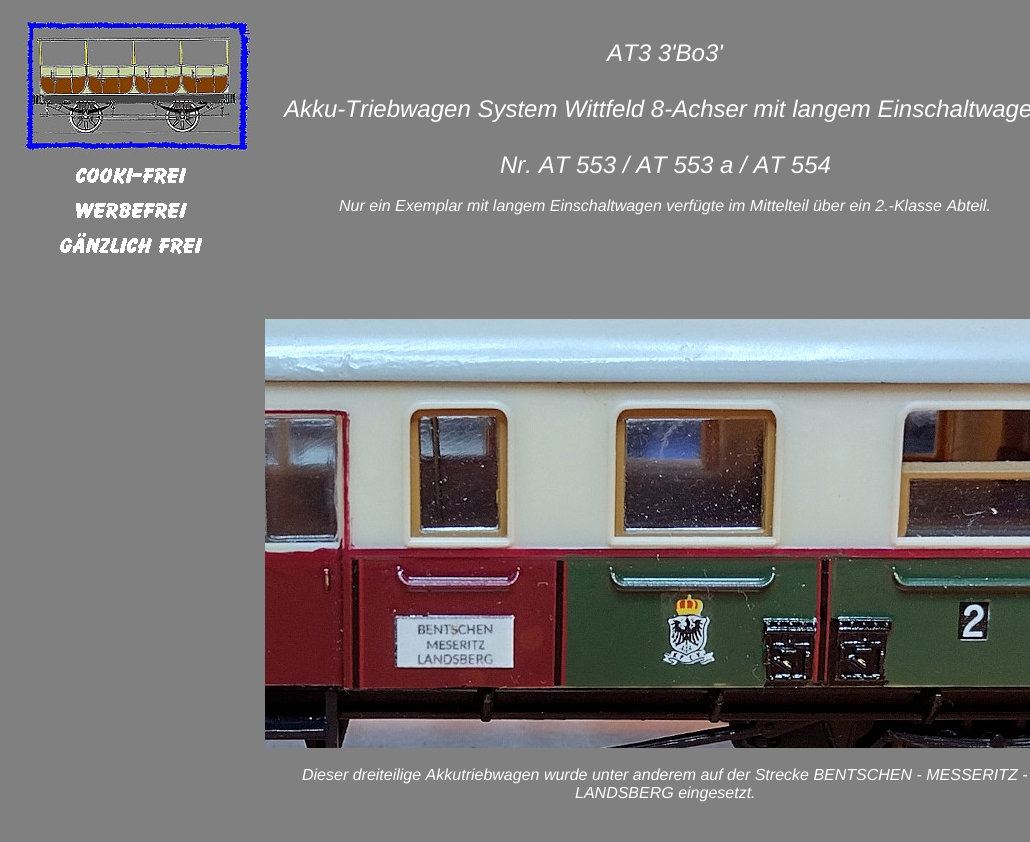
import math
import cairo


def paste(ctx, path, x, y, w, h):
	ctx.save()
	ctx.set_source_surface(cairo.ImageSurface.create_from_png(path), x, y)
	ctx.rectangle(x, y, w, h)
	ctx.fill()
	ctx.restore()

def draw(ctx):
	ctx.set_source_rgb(0.502, 0.502, 0.502)
	ctx.paint()
	paste(ctx, 'media/1.png', 11, 11, 241, 145)
	paste(ctx, 'media/2.png', 60, 168, 142, 86)
	ctx.select_font_face('Liberation Sans', cairo.FONT_SLANT_ITALIC)
	ctx.set_font_size(24)
	ctx.set_source_rgb(1, 1, 1)
	for x, y, s in [
		(607, 61, 'AT3 3\'Bo3\''),
		(284, 117, 'Akku-Triebwagen System Wittfeld 8-Achser mit langem Einschaltwage'),
		(500, 173, 'Nr. AT 553 / AT 553 a / AT 554'),
	]:
		ctx.move_to(x, y)
		ctx.show_text(s)
	ctx.set_font_size(16)
	ctx.move_to(339, 211)
	ctx.show_text('Nur ein Exemplar mit langem Einschaltwagen verfügte im Mittelteil über ein 2.-Klasse Abteil.')
	paste(ctx, 'media/3.png', 265, 319, 765, 429)
	ctx.move_to(302, 780)
	ctx.show_text('Dieser dreiteilige Akkutriebwagen wurde unter anderem auf der Strecke BENTSCHEN - MESSERITZ -')
	ctx.move_to(575, 798)
	ctx.show_text('LANDSBERG eingesetzt.')


surface = cairo.ImageSurface(cairo.FORMAT_RGB24, 1030, 842)
ctx = cairo.Context(surface)
options = cairo.FontOptions()
options.set_hint_metrics(cairo.HINT_METRICS_OFF)
options.set_hint_style(cairo.HINT_STYLE_NONE)
ctx.set_font_options(options)
ctx.set_miter_limit(4)
draw(ctx)
surface.write_to_png('image.png')
